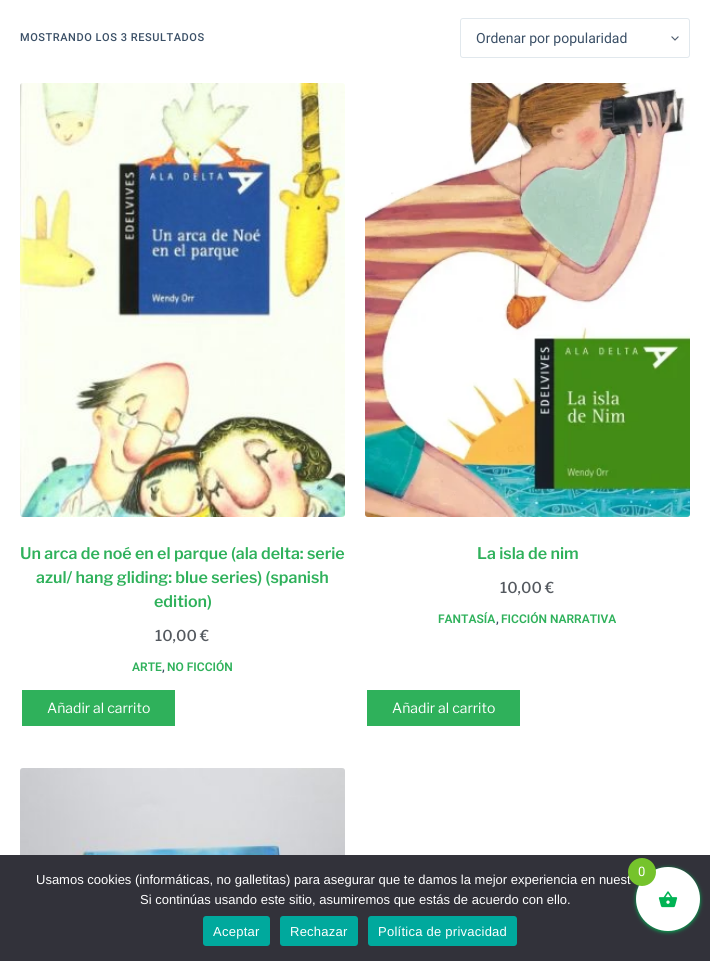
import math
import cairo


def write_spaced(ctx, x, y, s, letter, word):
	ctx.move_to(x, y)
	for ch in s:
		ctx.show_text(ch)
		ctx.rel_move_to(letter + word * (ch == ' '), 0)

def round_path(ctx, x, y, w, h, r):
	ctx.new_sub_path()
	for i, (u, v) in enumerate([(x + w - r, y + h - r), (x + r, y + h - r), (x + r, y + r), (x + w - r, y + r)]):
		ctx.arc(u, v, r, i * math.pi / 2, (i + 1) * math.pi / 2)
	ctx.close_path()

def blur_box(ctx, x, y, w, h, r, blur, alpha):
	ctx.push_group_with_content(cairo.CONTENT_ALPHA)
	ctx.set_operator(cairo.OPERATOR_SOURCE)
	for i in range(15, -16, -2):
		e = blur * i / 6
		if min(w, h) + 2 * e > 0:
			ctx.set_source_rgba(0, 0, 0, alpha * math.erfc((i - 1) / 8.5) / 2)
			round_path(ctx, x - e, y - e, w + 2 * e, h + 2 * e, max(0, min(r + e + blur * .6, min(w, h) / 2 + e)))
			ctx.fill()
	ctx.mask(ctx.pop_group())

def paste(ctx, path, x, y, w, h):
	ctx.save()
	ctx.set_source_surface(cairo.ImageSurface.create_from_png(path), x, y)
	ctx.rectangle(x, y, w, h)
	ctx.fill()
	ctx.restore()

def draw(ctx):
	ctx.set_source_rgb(1, 1, 1)
	ctx.paint()
	ctx.select_font_face('Roboto Medium')
	ctx.set_font_size(11)
	ctx.set_source_rgb(0.227, 0.31, 0.4)
	write_spaced(ctx, 20, 41, 'MOSTRANDO LOS 3 RESULTADOS', 0.55, 0)
	paste(ctx, 'media/1.png', 671, 36, 8, 5)
	round_path(ctx, 460.5, 18.5, 229, 39, 2.5)
	ctx.set_source_rgb(0.882, 0.91, 0.929)
	ctx.set_line_width(1)
	ctx.stroke()
	ctx.select_font_face('Roboto')
	ctx.set_font_size(14)
	ctx.set_source_rgb(0.227, 0.31, 0.4)
	ctx.move_to(476, 43)
	ctx.show_text('Ordenar por popularidad')
	paste(ctx, 'media/2.png', 20, 83, 325, 434)
	ctx.select_font_face('Libre Franklin SemiBold')
	ctx.set_font_size(16)
	ctx.set_source_rgb(0.184, 0.694, 0.357)
	for x, y, s in [
		(20, 559, 'Un arca de noé en el parque (ala delta: serie'),
		(36, 583, 'azul/ hang gliding: blue series) (spanish'),
		(154, 607, 'edition)'),
	]:
		ctx.move_to(x, y)
		ctx.show_text(s)
	ctx.select_font_face('Libre Franklin Medium')
	ctx.set_font_size(15)
	ctx.set_source_rgb(0.329, 0.349, 0.373)
	ctx.move_to(155, 641)
	ctx.show_text('10,00 €')
	ctx.select_font_face('Roboto SemiBold')
	ctx.set_font_size(12)
	ctx.set_source_rgb(0.184, 0.694, 0.357)
	ctx.move_to(132, 671)
	ctx.show_text('ARTE')
	ctx.set_source_rgb(0.227, 0.31, 0.4)
	ctx.move_to(162, 671)
	ctx.show_text(',')
	ctx.set_source_rgb(0.184, 0.694, 0.357)
	ctx.move_to(167, 671)
	ctx.show_text('NO FICCIÓN')
	ctx.rectangle(22, 690, 153, 36)
	ctx.fill()
	ctx.select_font_face('Libre Franklin')
	ctx.set_font_size(14)
	ctx.set_source_rgb(1, 1, 1)
	ctx.move_to(47, 713)
	ctx.show_text('Añadir al carrito')
	paste(ctx, 'media/3.png', 365, 83, 325, 434)
	ctx.select_font_face('Libre Franklin SemiBold')
	ctx.set_font_size(16)
	ctx.set_source_rgb(0.184, 0.694, 0.357)
	ctx.move_to(477, 559)
	ctx.show_text('La isla de nim')
	ctx.select_font_face('Libre Franklin Medium')
	ctx.set_font_size(15)
	ctx.set_source_rgb(0.329, 0.349, 0.373)
	ctx.move_to(500, 593)
	ctx.show_text('10,00 €')
	ctx.select_font_face('Roboto SemiBold')
	ctx.set_font_size(12)
	ctx.set_source_rgb(0.184, 0.694, 0.357)
	ctx.move_to(438, 623)
	ctx.show_text('FANTASÍA')
	ctx.set_source_rgb(0.227, 0.31, 0.4)
	ctx.move_to(496, 623)
	ctx.show_text(',')
	ctx.set_source_rgb(0.184, 0.694, 0.357)
	ctx.move_to(501, 623)
	ctx.show_text('FICCIÓN NARRATIVA')
	ctx.rectangle(367, 690, 153, 36)
	ctx.fill()
	ctx.select_font_face('Libre Franklin')
	ctx.set_font_size(14)
	ctx.set_source_rgb(1, 1, 1)
	ctx.move_to(392, 713)
	ctx.show_text('Añadir al carrito')
	paste(ctx, 'media/4.png', 20, 768, 325, 87)
	ctx.set_source_rgb(0.196, 0.196, 0.227)
	ctx.rectangle(0, 855, 710, 106)
	ctx.fill()
	ctx.set_source_rgb(0, 0.702, 0.329)
	blur_box(ctx, 636, 868, 64, 64, 32, 2, 1)
	ctx.set_source_rgb(1, 1, 1)
	ctx.arc(668, 899, 32, 0, 2 * math.pi)
	ctx.fill()
	ctx.select_font_face('Liberation Sans')
	ctx.set_font_size(13)
	ctx.move_to(36, 884)
	ctx.show_text('Usamos cookies (informáticas, no galletitas) para asegurar que te damos la mejor experiencia en nuest')
	ctx.set_source_rgb(0.459, 0.765, 0.173)
	ctx.new_path()
	ctx.arc(642, 872, 14, 0, 2 * math.pi)
	ctx.fill()
	ctx.select_font_face('Roboto')
	ctx.set_source_rgb(1, 1, 1)
	ctx.move_to(638, 876)
	ctx.show_text('0')
	paste(ctx, 'media/5.png', 658, 891, 20, 17)
	ctx.select_font_face('Liberation Sans')
	ctx.move_to(140, 904)
	ctx.show_text('Si continúas usando este sitio, asumiremos que estás de acuerdo con ello.')
	ctx.set_source_rgb(0, 0.663, 0.616)
	round_path(ctx, 203, 916, 67, 30, 3)
	ctx.fill()
	ctx.set_source_rgb(1, 1, 1)
	write_spaced(ctx, 213, 936, 'Aceptar', 0.25, 0)
	ctx.set_source_rgb(0, 0.663, 0.616)
	round_path(ctx, 280, 916, 78, 30, 3)
	ctx.fill()
	ctx.set_source_rgb(1, 1, 1)
	write_spaced(ctx, 290, 936, 'Rechazar', 0.25, 0)
	ctx.set_source_rgb(0, 0.663, 0.616)
	round_path(ctx, 368, 916, 149, 30, 3)
	ctx.fill()
	ctx.set_source_rgb(1, 1, 1)
	write_spaced(ctx, 378, 936, 'Política de privacidad', 0.25, 0)


surface = cairo.ImageSurface(cairo.FORMAT_RGB24, 710, 961)
ctx = cairo.Context(surface)
options = cairo.FontOptions()
options.set_hint_metrics(cairo.HINT_METRICS_OFF)
options.set_hint_style(cairo.HINT_STYLE_NONE)
ctx.set_font_options(options)
ctx.set_miter_limit(4)
draw(ctx)
surface.write_to_png('image.png')
